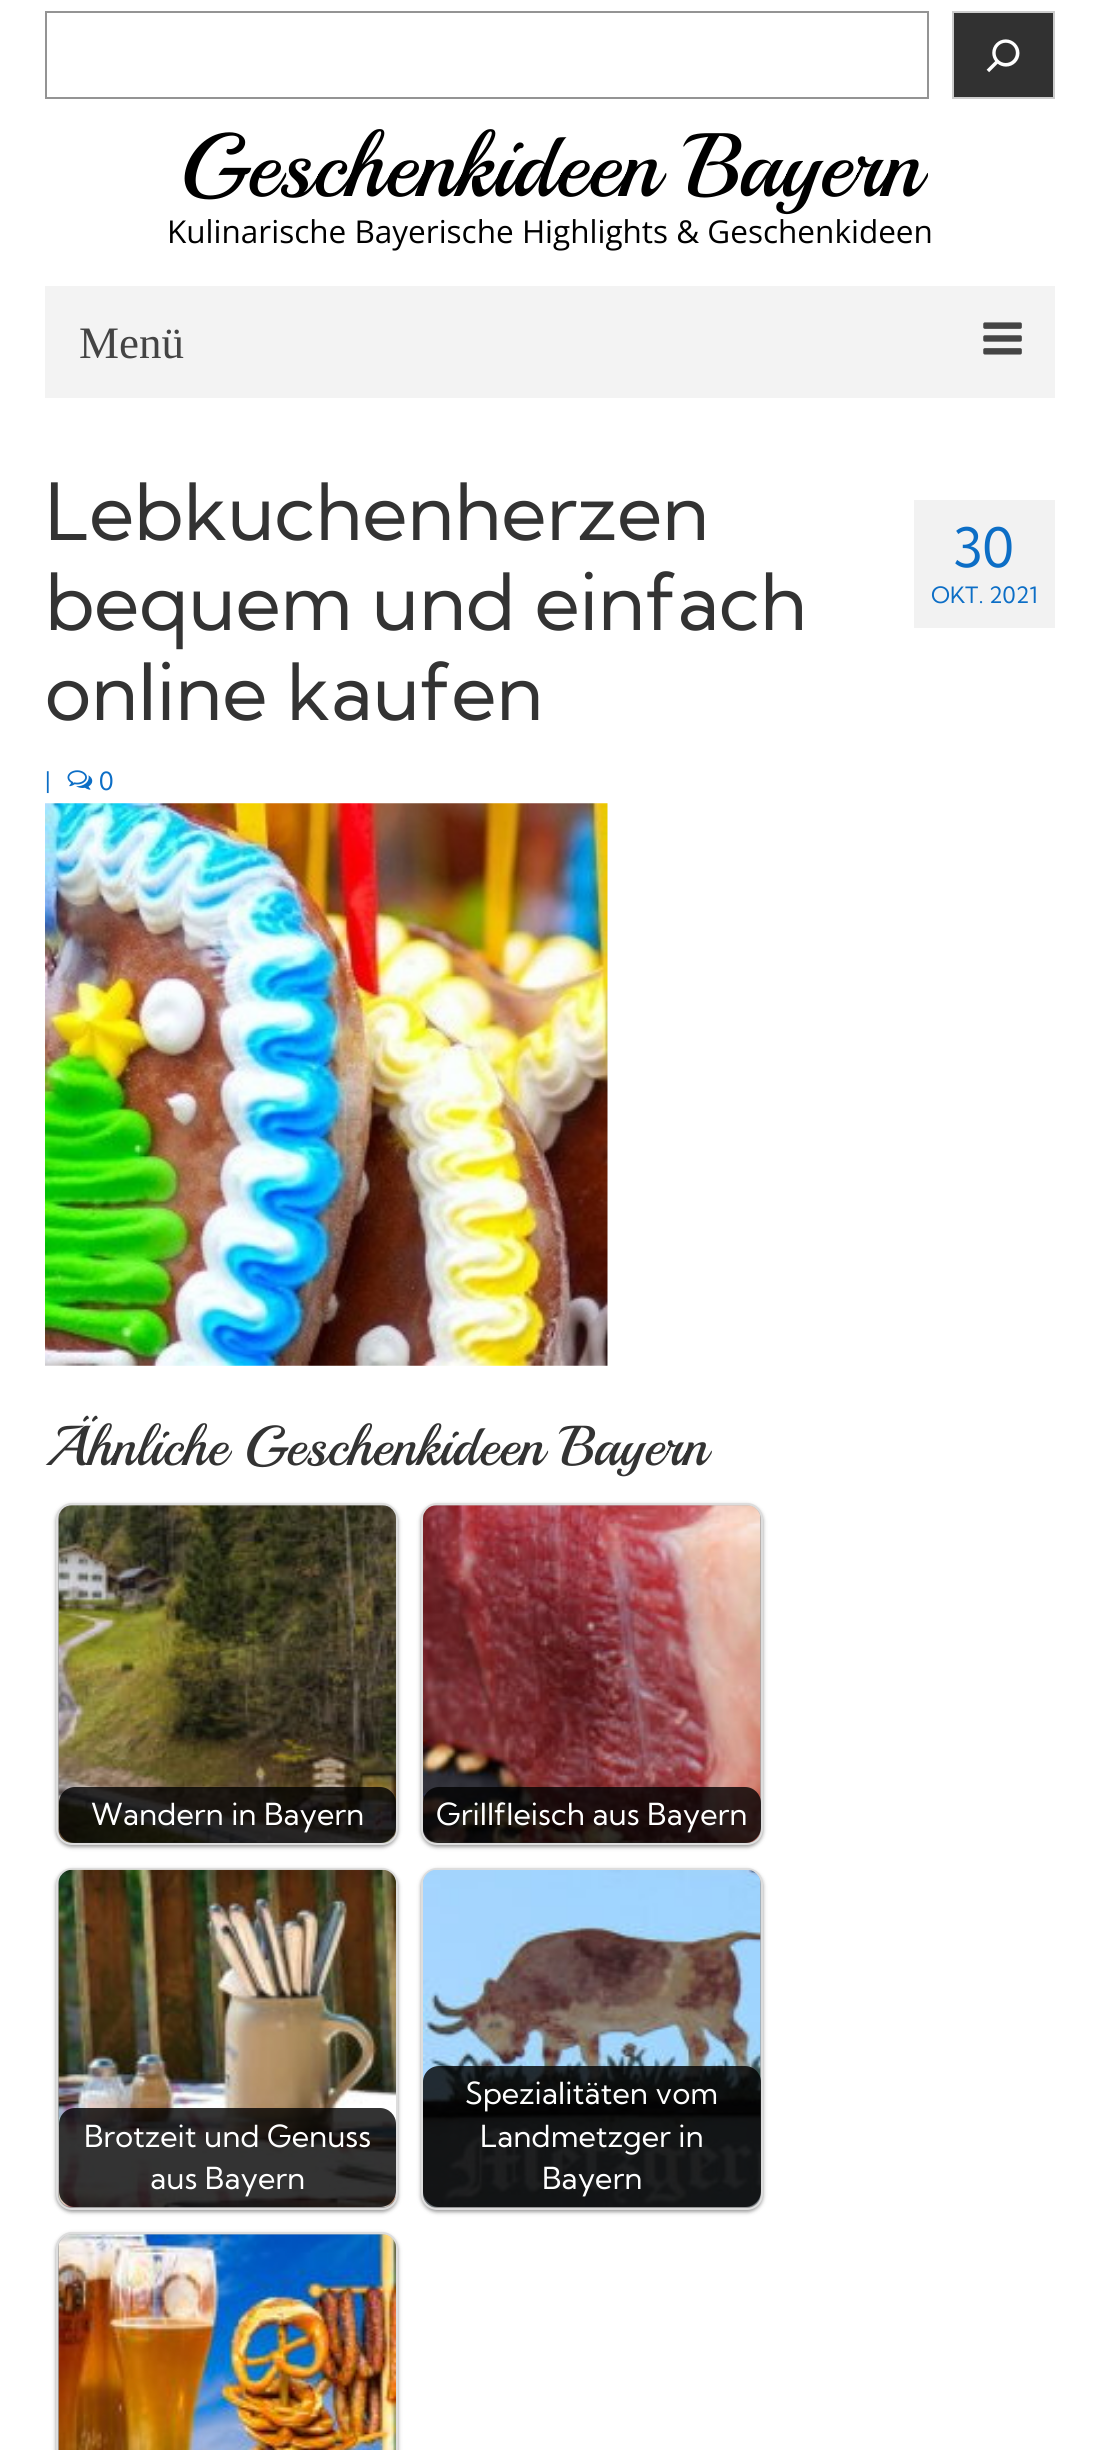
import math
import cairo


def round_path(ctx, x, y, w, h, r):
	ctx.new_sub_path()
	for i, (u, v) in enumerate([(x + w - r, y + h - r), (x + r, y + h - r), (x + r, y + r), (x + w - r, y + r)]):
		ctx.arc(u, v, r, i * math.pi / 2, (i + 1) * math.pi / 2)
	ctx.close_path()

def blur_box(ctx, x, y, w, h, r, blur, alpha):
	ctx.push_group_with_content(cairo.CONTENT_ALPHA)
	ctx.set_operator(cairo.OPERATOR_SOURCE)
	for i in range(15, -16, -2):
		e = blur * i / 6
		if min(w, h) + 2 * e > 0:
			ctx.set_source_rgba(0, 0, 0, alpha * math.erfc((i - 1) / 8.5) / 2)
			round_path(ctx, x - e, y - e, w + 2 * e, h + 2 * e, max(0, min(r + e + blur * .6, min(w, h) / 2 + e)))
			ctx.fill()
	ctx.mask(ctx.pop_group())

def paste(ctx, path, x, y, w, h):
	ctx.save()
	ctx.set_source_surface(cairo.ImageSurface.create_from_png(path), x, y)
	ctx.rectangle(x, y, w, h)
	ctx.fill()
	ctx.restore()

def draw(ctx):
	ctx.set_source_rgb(1, 1, 1)
	ctx.paint()
	ctx.rectangle(46, 12, 882, 86)
	ctx.set_source_rgb(0.58, 0.58, 0.58)
	ctx.stroke()
	ctx.set_source_rgb(0.192, 0.192, 0.192)
	ctx.rectangle(953, 12, 101, 86)
	ctx.fill_preserve()
	ctx.set_source_rgb(0.8, 0.8, 0.8)
	ctx.stroke()
	paste(ctx, 'media/1.png', 986, 39, 34, 34)
	ctx.select_font_face('Playball')
	ctx.set_font_size(90)
	ctx.set_source_rgb(0, 0, 0)
	ctx.move_to(180, 196)
	ctx.show_text('Geschenkideen Bayern')
	ctx.select_font_face('Open Sans')
	ctx.set_font_size(31.5)
	ctx.move_to(167, 243)
	ctx.show_text('Kulinarische Bayerische Highlights & Geschenkideen')
	ctx.set_source_rgb(0.953, 0.953, 0.953)
	ctx.rectangle(45, 286, 1010, 112)
	ctx.fill()
	ctx.select_font_face('Liberation Serif')
	ctx.set_font_size(45)
	ctx.set_source_rgb(0.267, 0.267, 0.267)
	ctx.move_to(79, 358)
	ctx.show_text('Menü')
	paste(ctx, 'media/2.png', 983, 322, 39, 33)
	ctx.select_font_face('Kumbh Sans')
	ctx.set_font_size(78.75)
	ctx.set_source_rgb(0.2, 0.2, 0.2)
	for x, y, s in [
		(45, 540, 'Lebkuchenherzen'),
		(45, 630, 'bequem und einfach'),
		(45, 720, 'online kaufen'),
	]:
		ctx.move_to(x, y)
		ctx.show_text(s)
	ctx.set_font_size(25)
	ctx.set_source_rgb(0.047, 0.431, 0.776)
	ctx.move_to(45, 790)
	ctx.show_text('|')
	paste(ctx, 'media/3.png', 67, 770, 26, 20)
	ctx.move_to(99, 790)
	ctx.show_text('0')
	ctx.set_source_rgb(0.949, 0.949, 0.949)
	ctx.rectangle(914, 500, 141, 128)
	ctx.fill()
	ctx.set_font_size(54)
	ctx.set_source_rgb(0.047, 0.431, 0.776)
	ctx.move_to(953, 567)
	ctx.show_text('30')
	ctx.set_font_size(22.5)
	ctx.move_to(931, 603)
	ctx.show_text('OKT. 2021')
	paste(ctx, 'media/4.png', 45, 803, 563, 563)
	ctx.select_font_face('Playball')
	ctx.set_font_size(56.25)
	ctx.set_source_rgb(0.2, 0.2, 0.2)
	ctx.move_to(45, 1465)
	ctx.show_text('Ähnliche Geschenkideen Bayern')
	ctx.set_source_rgb(0, 0, 0)
	blur_box(ctx, 56, 1505, 342, 342, 16, 2, 0.4)
	round_path(ctx, 57, 1504, 340, 340, 15)
	ctx.set_source_rgb(0.867, 0.867, 0.867)
	ctx.stroke()
	paste(ctx, 'media/5.png', 58, 1505, 338, 338)
	ctx.save()
	round_path(ctx, 59, 1505, 337, 338, 14)
	ctx.clip()
	ctx.set_source_rgba(0, 0, 0, 0.8)
	round_path(ctx, 59, 1787, 337, 56, 16)
	ctx.fill()
	ctx.restore()
	ctx.select_font_face('Kumbh Sans')
	ctx.set_font_size(30.4)
	ctx.set_source_rgb(1, 1, 1)
	ctx.move_to(91, 1825)
	ctx.show_text('Wandern in Bayern')
	ctx.set_source_rgb(0, 0, 0)
	blur_box(ctx, 421, 1505, 342, 342, 16, 2, 0.4)
	round_path(ctx, 422, 1504, 340, 340, 15)
	ctx.set_source_rgb(0.867, 0.867, 0.867)
	ctx.stroke()
	paste(ctx, 'media/6.png', 423, 1505, 338, 338)
	ctx.save()
	round_path(ctx, 423, 1505, 338, 338, 14)
	ctx.clip()
	ctx.set_source_rgba(0, 0, 0, 0.8)
	round_path(ctx, 423, 1787, 338, 56, 16)
	ctx.fill()
	ctx.restore()
	ctx.set_source_rgb(1, 1, 1)
	ctx.move_to(436, 1825)
	ctx.show_text('Grillfleisch aus Bayern')
	ctx.set_source_rgb(0, 0, 0)
	blur_box(ctx, 56, 1870, 342, 342, 16, 2, 0.4)
	round_path(ctx, 57, 1869, 340, 340, 15)
	ctx.set_source_rgb(0.867, 0.867, 0.867)
	ctx.stroke()
	paste(ctx, 'media/7.png', 58, 1869, 338, 339)
	ctx.save()
	round_path(ctx, 59, 1870, 337, 337, 14)
	ctx.clip()
	ctx.set_source_rgba(0, 0, 0, 0.8)
	round_path(ctx, 59, 2108, 337, 99, 16)
	ctx.fill()
	ctx.restore()
	ctx.set_source_rgb(1, 1, 1)
	ctx.move_to(84, 2147)
	ctx.show_text('Brotzeit und Genuss')
	ctx.move_to(150, 2189)
	ctx.show_text('aus Bayern')
	ctx.set_source_rgb(0, 0, 0)
	blur_box(ctx, 421, 1870, 342, 342, 16, 2, 0.4)
	round_path(ctx, 422, 1869, 340, 340, 15)
	ctx.set_source_rgb(0.867, 0.867, 0.867)
	ctx.stroke()
	paste(ctx, 'media/8.png', 423, 1870, 338, 338)
	ctx.save()
	round_path(ctx, 423, 1870, 338, 337, 14)
	ctx.clip()
	ctx.set_source_rgba(0, 0, 0, 0.8)
	round_path(ctx, 423, 2066, 338, 141, 16)
	ctx.fill()
	ctx.restore()
	ctx.set_source_rgb(1, 1, 1)
	for x, y, s in [
		(465, 2104, 'Spezialitäten vom'),
		(480, 2147, 'Landmetzger in'),
		(542, 2189, 'Bayern'),
	]:
		ctx.move_to(x, y)
		ctx.show_text(s)
	ctx.set_source_rgb(0, 0, 0)
	blur_box(ctx, 56, 2234, 342, 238, 16, 2, 0.4)
	round_path(ctx, 57, 2233, 340, 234, 15)
	ctx.set_source_rgb(0.867, 0.867, 0.867)
	ctx.stroke()
	paste(ctx, 'media/9.png', 58, 2234, 338, 216)


surface = cairo.ImageSurface(cairo.FORMAT_RGB24, 1100, 2450)
ctx = cairo.Context(surface)
options = cairo.FontOptions()
options.set_hint_metrics(cairo.HINT_METRICS_OFF)
options.set_hint_style(cairo.HINT_STYLE_NONE)
ctx.set_font_options(options)
ctx.set_miter_limit(4)
draw(ctx)
surface.write_to_png('image.png')
